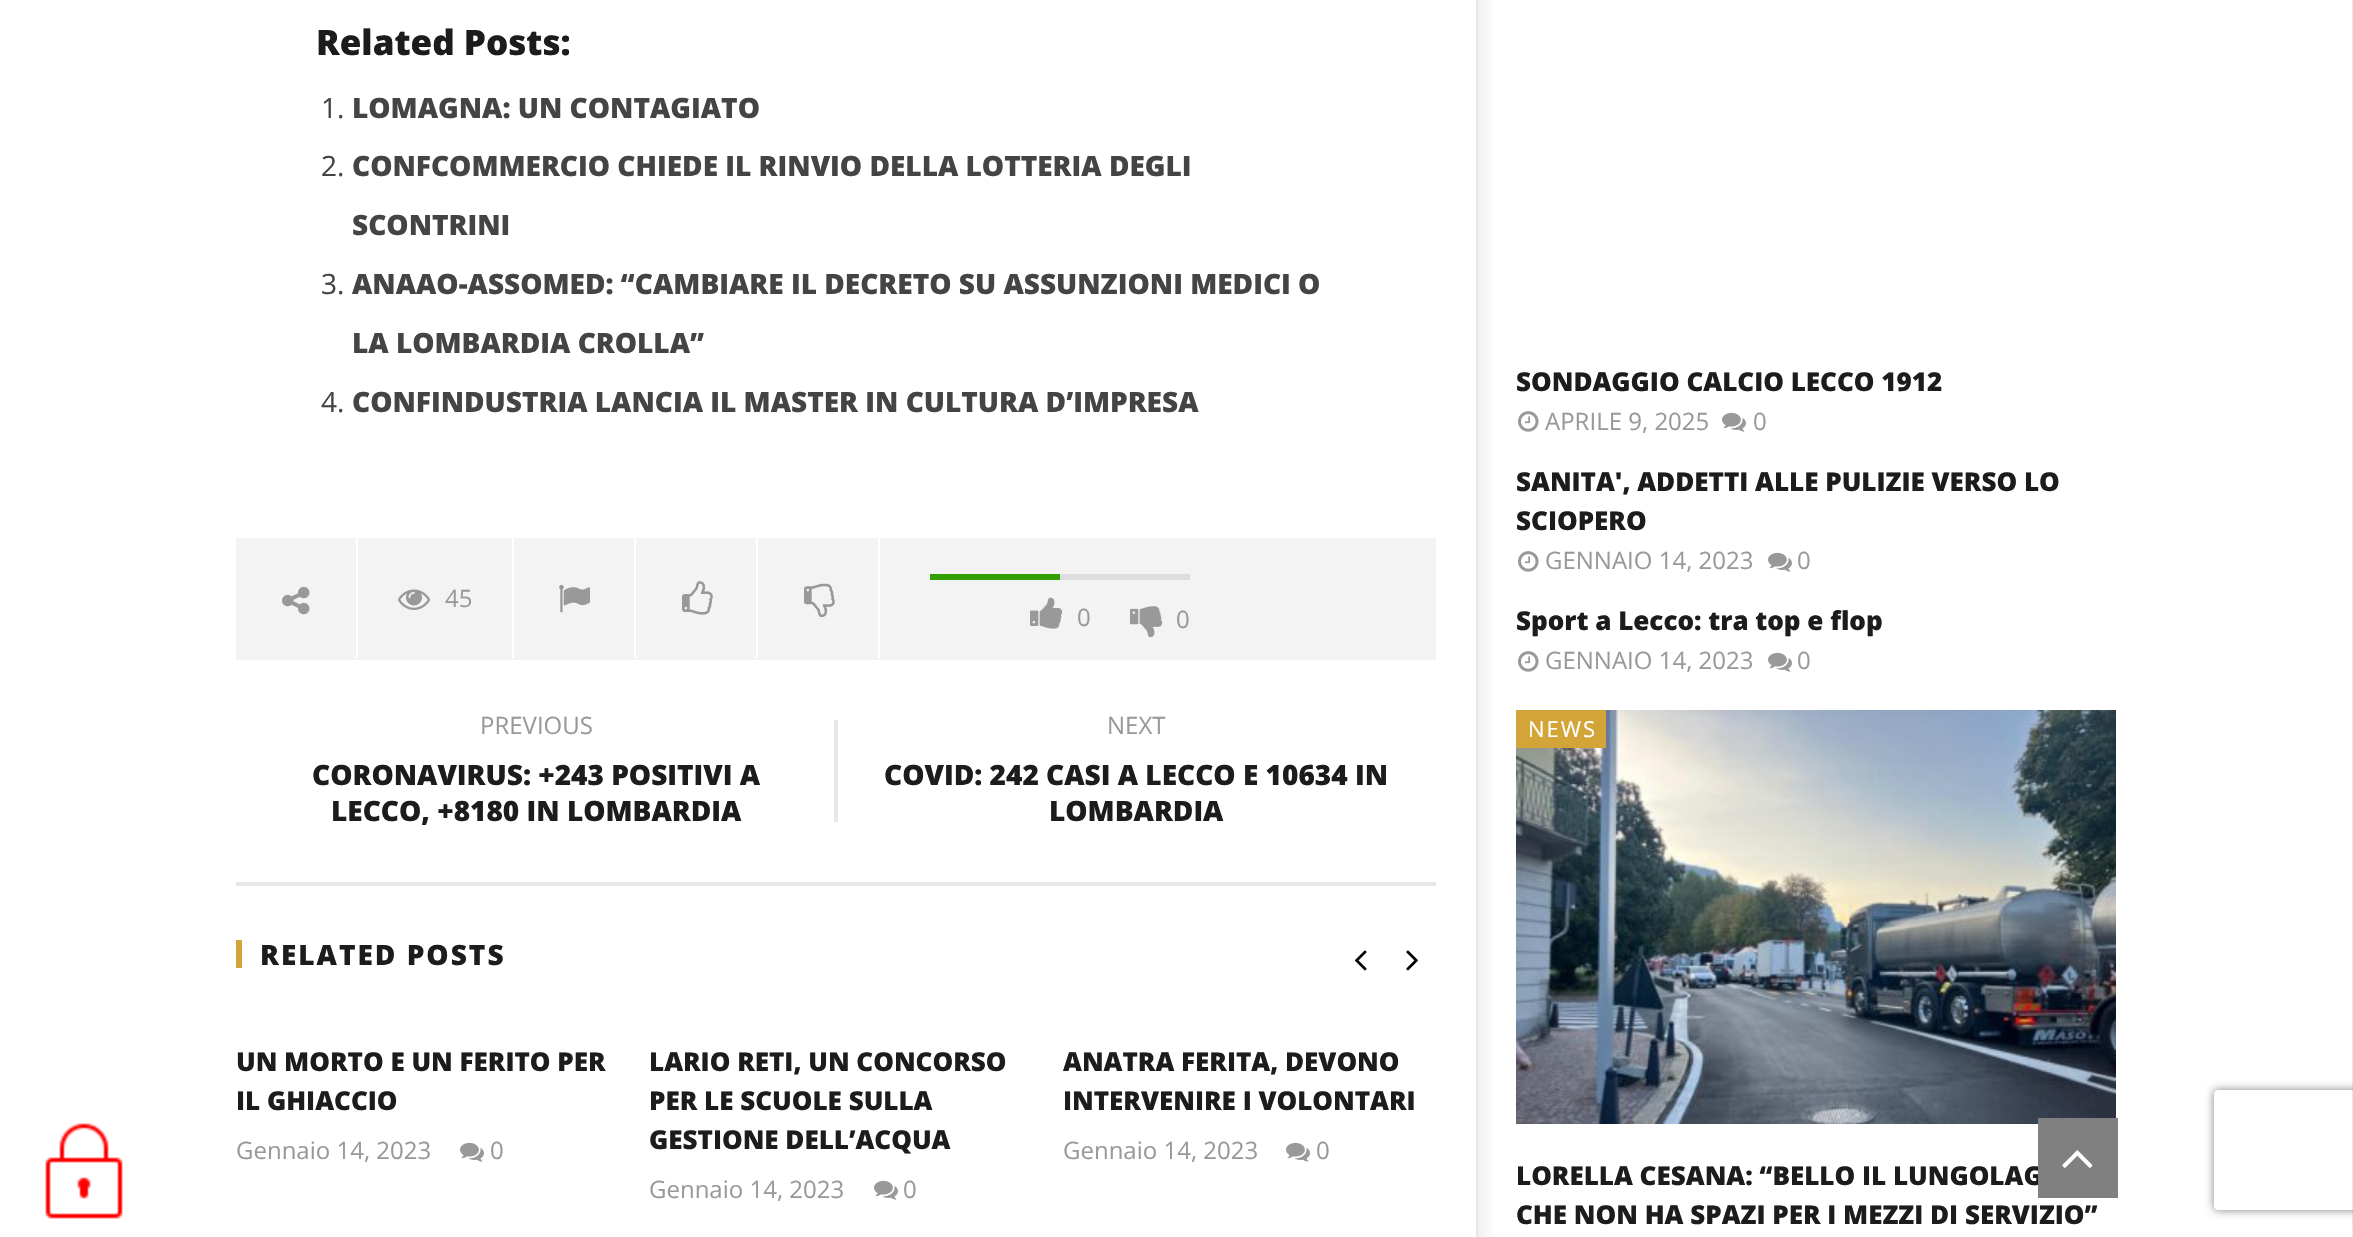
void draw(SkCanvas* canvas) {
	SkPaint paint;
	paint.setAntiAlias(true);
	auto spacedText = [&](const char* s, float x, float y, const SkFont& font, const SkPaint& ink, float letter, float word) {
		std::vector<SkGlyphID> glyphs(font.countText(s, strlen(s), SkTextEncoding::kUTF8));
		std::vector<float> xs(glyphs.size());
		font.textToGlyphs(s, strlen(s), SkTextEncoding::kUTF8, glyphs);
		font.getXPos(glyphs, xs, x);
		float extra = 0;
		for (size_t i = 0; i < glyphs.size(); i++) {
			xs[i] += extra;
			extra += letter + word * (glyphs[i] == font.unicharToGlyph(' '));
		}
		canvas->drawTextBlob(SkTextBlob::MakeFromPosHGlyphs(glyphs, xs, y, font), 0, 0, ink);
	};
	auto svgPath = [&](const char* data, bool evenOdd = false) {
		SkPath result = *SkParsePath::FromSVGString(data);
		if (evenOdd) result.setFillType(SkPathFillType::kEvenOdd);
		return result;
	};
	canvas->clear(0xffe7e7e7);
	paint.setColor(0xffffffff);
	canvas->drawRect(SkRect::MakeXYWH(0, 0, 2352, 1237), paint);
	canvas->drawImageRect(SkImages::DeferredFromEncodedData(SkData::MakeFromFileName("img1.png")), SkRect::MakeXYWH(45, 1123, 78, 96), SkSamplingOptions());
	SkFont f1(fontMgr->matchFamilyStyle("Open Sans", SkFontStyle(800, SkFontStyle::kNormal_Width, SkFontStyle::kUpright_Slant)), 35);
	f1.setSubpixel(true);
	paint.setColor(0xff1c1c1c);
	canvas->drawString("Related Posts:", 316, 55, f1, paint);
	SkFont f2(fontMgr->matchFamilyStyle("Open Sans", SkFontStyle::Normal()), 28);
	f2.setSubpixel(true);
	paint.setColor(0xff444444);
	canvas->drawString("1.", 321, 118, f2, paint);
	SkFont f3(fontMgr->matchFamilyStyle("Open Sans", SkFontStyle(800, SkFontStyle::kNormal_Width, SkFontStyle::kUpright_Slant)), 28);
	f3.setSubpixel(true);
	canvas->drawString("LOMAGNA: UN CONTAGIATO", 352, 118, f3, paint);
	canvas->drawString("2.", 321, 176, f2, paint);
	canvas->drawString("CONFCOMMERCIO CHIEDE IL RINVIO DELLA LOTTERIA DEGLI", 352, 176, f3, paint);
	canvas->drawString("SCONTRINI", 352, 235, f3, paint);
	canvas->drawString("3.", 321, 294, f2, paint);
	canvas->drawString("ANAAO-ASSOMED: “CAMBIARE IL DECRETO SU ASSUNZIONI MEDICI O", 352, 294, f3, paint);
	canvas->drawString("LA LOMBARDIA CROLLA”", 352, 353, f3, paint);
	canvas->drawString("4.", 321, 412, f2, paint);
	canvas->drawString("CONFINDUSTRIA LANCIA IL MASTER IN CULTURA D’IMPRESA", 352, 412, f3, paint);
	paint.setColor(0xfff3f3f3);
	canvas->drawRect(SkRect::MakeXYWH(236, 538, 1200, 122), paint);
	paint.setColor(0xffffffff);
	canvas->drawRect(SkRect::MakeXYWH(356, 538, 2, 120), paint);
	canvas->drawImageRect(SkImages::DeferredFromEncodedData(SkData::MakeFromFileName("img2.png")), SkRect::MakeXYWH(282, 586, 28, 29), SkSamplingOptions());
	canvas->drawRect(SkRect::MakeXYWH(512, 538, 2, 120), paint);
	canvas->drawImageRect(SkImages::DeferredFromEncodedData(SkData::MakeFromFileName("img3.png")), SkRect::MakeXYWH(398, 589, 32, 21), SkSamplingOptions());
	SkFont f4(fontMgr->matchFamilyStyle("Open Sans", SkFontStyle::Normal()), 24);
	f4.setSubpixel(true);
	paint.setColor(0xff999999);
	canvas->drawString("45", 445, 607, f4, paint);
	paint.setColor(0xffffffff);
	canvas->drawRect(SkRect::MakeXYWH(634, 538, 2, 120), paint);
	canvas->drawImageRect(SkImages::DeferredFromEncodedData(SkData::MakeFromFileName("img4.png")), SkRect::MakeXYWH(559, 584, 31, 29), SkSamplingOptions());
	canvas->drawRect(SkRect::MakeXYWH(756, 538, 2, 120), paint);
	canvas->drawImageRect(SkImages::DeferredFromEncodedData(SkData::MakeFromFileName("img5.png")), SkRect::MakeXYWH(682, 581, 31, 34), SkSamplingOptions());
	canvas->drawRect(SkRect::MakeXYWH(878, 538, 2, 120), paint);
	canvas->drawImageRect(SkImages::DeferredFromEncodedData(SkData::MakeFromFileName("img6.png")), SkRect::MakeXYWH(804, 583, 31, 35), SkSamplingOptions());
	paint.setColor(0xffdddddd);
	canvas->drawRect(SkRect::MakeXYWH(1060, 574, 130, 6), paint);
	paint.setColor(0xff329e00);
	canvas->drawRect(SkRect::MakeXYWH(930, 574, 130, 6), paint);
	canvas->drawImageRect(SkImages::DeferredFromEncodedData(SkData::MakeFromFileName("img7.png")), SkRect::MakeXYWH(1030, 597, 33, 32), SkSamplingOptions());
	paint.setColor(0xff999999);
	canvas->drawString("0", 1077, 626, f4, paint);
	canvas->drawImageRect(SkImages::DeferredFromEncodedData(SkData::MakeFromFileName("img8.png")), SkRect::MakeXYWH(1130, 606, 33, 32), SkSamplingOptions());
	canvas->drawString("0", 1176, 628, f4, paint);
	paint.setColor(0xffe7e7e7);
	canvas->drawRect(SkRect::MakeXYWH(236, 882, 1200, 4), paint);
	paint.setColor(0xff999999);
	canvas->drawString("PREVIOUS", 480, 734, f4, paint);
	paint.setColor(0xff1c1c1c);
	canvas->drawString("CORONAVIRUS: +243 POSITIVI A", 312, 785, f3, paint);
	canvas->drawString("LECCO, +8180 IN LOMBARDIA", 331, 821, f3, paint);
	paint.setColor(0xffe7e7e7);
	canvas->drawRect(SkRect::MakeXYWH(834, 720, 4, 102), paint);
	paint.setColor(0xff999999);
	canvas->drawString("NEXT", 1107, 734, f4, paint);
	paint.setColor(0xff1c1c1c);
	canvas->drawString("COVID: 242 CASI A LECCO E 10634 IN", 884, 785, f3, paint);
	canvas->drawString("LOMBARDIA", 1049, 821, f3, paint);
	paint.setColor(0xffd3a538);
	canvas->drawRect(SkRect::MakeXYWH(236, 940, 6, 28), paint);
	paint.setColor(0xff1c1c1c);
	spacedText("RELATED POSTS", 260, 965, f3, paint, 2, 0);
	canvas->drawImageRect(SkImages::DeferredFromEncodedData(SkData::MakeFromFileName("img9.png")), SkRect::MakeXYWH(1354, 950, 13, 21), SkSamplingOptions());
	canvas->drawImageRect(SkImages::DeferredFromEncodedData(SkData::MakeFromFileName("img10.png")), SkRect::MakeXYWH(1406, 950, 12, 21), SkSamplingOptions());
	SkFont f5(fontMgr->matchFamilyStyle("Open Sans", SkFontStyle(800, SkFontStyle::kNormal_Width, SkFontStyle::kUpright_Slant)), 26);
	f5.setSubpixel(true);
	canvas->drawString("UN MORTO E UN FERITO PER", 236, 1071, f5, paint);
	canvas->drawString("IL GHIACCIO", 236, 1110, f5, paint);
	paint.setColor(0xff999999);
	canvas->drawString("Gennaio 14, 2023", 236, 1159, f4, paint);
	canvas->drawImageRect(SkImages::DeferredFromEncodedData(SkData::MakeFromFileName("img11.png")), SkRect::MakeXYWH(460, 1142, 24, 20), SkSamplingOptions());
	canvas->drawString("0", 490, 1159, f4, paint);
	paint.setColor(0xff1c1c1c);
	canvas->drawString("LARIO RETI, UN CONCORSO", 649, 1071, f5, paint);
	canvas->drawString("PER LE SCUOLE SULLA", 649, 1110, f5, paint);
	canvas->drawString("GESTIONE DELL’ACQUA", 649, 1149, f5, paint);
	paint.setColor(0xff999999);
	canvas->drawString("Gennaio 14, 2023", 649, 1198, f4, paint);
	canvas->drawImageRect(SkImages::DeferredFromEncodedData(SkData::MakeFromFileName("img11.png")), SkRect::MakeXYWH(874, 1180, 24, 20), SkSamplingOptions());
	canvas->drawString("0", 903, 1198, f4, paint);
	paint.setColor(0xff1c1c1c);
	canvas->drawString("ANATRA FERITA, DEVONO", 1063, 1071, f5, paint);
	canvas->drawString("INTERVENIRE I VOLONTARI", 1063, 1110, f5, paint);
	paint.setColor(0xff999999);
	canvas->drawString("Gennaio 14, 2023", 1063, 1159, f4, paint);
	canvas->drawImageRect(SkImages::DeferredFromEncodedData(SkData::MakeFromFileName("img11.png")), SkRect::MakeXYWH(1286, 1142, 24, 20), SkSamplingOptions());
	canvas->drawString("0", 1316, 1159, f4, paint);
	{
		const SkColor colors[] = {0xfff0f0f0, 0xffffffff};
		const float stops[] = {0, 1};
		const SkPoint ends[] = {{1478, -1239}, {1496, -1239}};
		paint.setShader(SkGradientShader::MakeLinear(ends, colors, stops, 2, SkTileMode::kClamp));
		paint.setAlpha(255);
	}
	canvas->drawRect(SkRect::MakeXYWH(1478, 0, 15, 1237), paint);
	paint.setShader(nullptr);
	paint.setColor(0xffe7e7e7);
	canvas->drawRect(SkRect::MakeXYWH(1476, 0, 2, 1237), paint);
	paint.setColor(0xff1c1c1c);
	canvas->drawString("SONDAGGIO CALCIO LECCO 1912", 1516, 391, f5, paint);
	canvas->drawImageRect(SkImages::DeferredFromEncodedData(SkData::MakeFromFileName("img12.png")), SkRect::MakeXYWH(1518, 411, 21, 21), SkSamplingOptions());
	paint.setColor(0xff999999);
	canvas->drawString("APRILE 9, 2025", 1545, 430, f4, paint);
	canvas->drawImageRect(SkImages::DeferredFromEncodedData(SkData::MakeFromFileName("img11.png")), SkRect::MakeXYWH(1722, 412, 24, 20), SkSamplingOptions());
	canvas->drawString("0", 1753, 430, f4, paint);
	paint.setColor(0xff1c1c1c);
	canvas->drawString("SANITA', ADDETTI ALLE PULIZIE VERSO LO", 1516, 491, f5, paint);
	canvas->drawString("SCIOPERO", 1516, 530, f5, paint);
	canvas->drawImageRect(SkImages::DeferredFromEncodedData(SkData::MakeFromFileName("img12.png")), SkRect::MakeXYWH(1518, 551, 21, 21), SkSamplingOptions());
	paint.setColor(0xff999999);
	canvas->drawString("GENNAIO 14, 2023", 1545, 569, f4, paint);
	canvas->drawImageRect(SkImages::DeferredFromEncodedData(SkData::MakeFromFileName("img11.png")), SkRect::MakeXYWH(1768, 552, 24, 20), SkSamplingOptions());
	canvas->drawString("0", 1797, 569, f4, paint);
	paint.setColor(0xff1c1c1c);
	canvas->drawString("Sport a Lecco: tra top e flop", 1516, 630, f5, paint);
	canvas->drawImageRect(SkImages::DeferredFromEncodedData(SkData::MakeFromFileName("img12.png")), SkRect::MakeXYWH(1518, 651, 21, 21), SkSamplingOptions());
	paint.setColor(0xff999999);
	canvas->drawString("GENNAIO 14, 2023", 1545, 669, f4, paint);
	canvas->drawImageRect(SkImages::DeferredFromEncodedData(SkData::MakeFromFileName("img11.png")), SkRect::MakeXYWH(1768, 652, 24, 20), SkSamplingOptions());
	canvas->drawString("0", 1797, 669, f4, paint);
	canvas->drawImageRect(SkImages::DeferredFromEncodedData(SkData::MakeFromFileName("img13.png")), SkRect::MakeXYWH(1516, 710, 600, 414), SkSamplingOptions());
	paint.setColor(0xffd3a538);
	canvas->drawRect(SkRect::MakeXYWH(1516, 710, 90, 38), paint);
	SkFont f6(fontMgr->matchFamilyStyle("Open Sans", SkFontStyle::Normal()), 22);
	f6.setSubpixel(true);
	paint.setColor(0xffffffff);
	spacedText("NEWS", 1528, 737, f6, paint, 2, 0);
	paint.setColor(0xff1c1c1c);
	canvas->drawString("LORELLA CESANA: “BELLO IL LUNGOLAG", 1516, 1185, f5, paint);
	canvas->drawString("CHE NON HA SPAZI PER I MEZZI DI SERVIZIO”", 1516, 1224, f5, paint);
	paint.setColor(0xff808080);
	canvas->drawRect(SkRect::MakeXYWH(2038, 1118, 80, 80), paint);
	canvas->drawImageRect(SkImages::DeferredFromEncodedData(SkData::MakeFromFileName("img14.png")), SkRect::MakeXYWH(2062, 1150, 31, 18), SkSamplingOptions());
	canvas->save();
	canvas->clipPath(svgPath("M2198 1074H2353V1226H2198ZM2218 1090H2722C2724 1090 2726 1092 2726 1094V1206C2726 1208 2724 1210 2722 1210H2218C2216 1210 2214 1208 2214 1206V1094C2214 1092 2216 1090 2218 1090Z", true), true);
	paint.setMaskFilter(SkMaskFilter::MakeBlur(kNormal_SkBlurStyle, 5));
	canvas->drawRoundRect(SkRect::MakeXYWH(2214, 1090, 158, 120), 4, 4, paint);
	paint.setMaskFilter(nullptr);
	canvas->restore();
}
